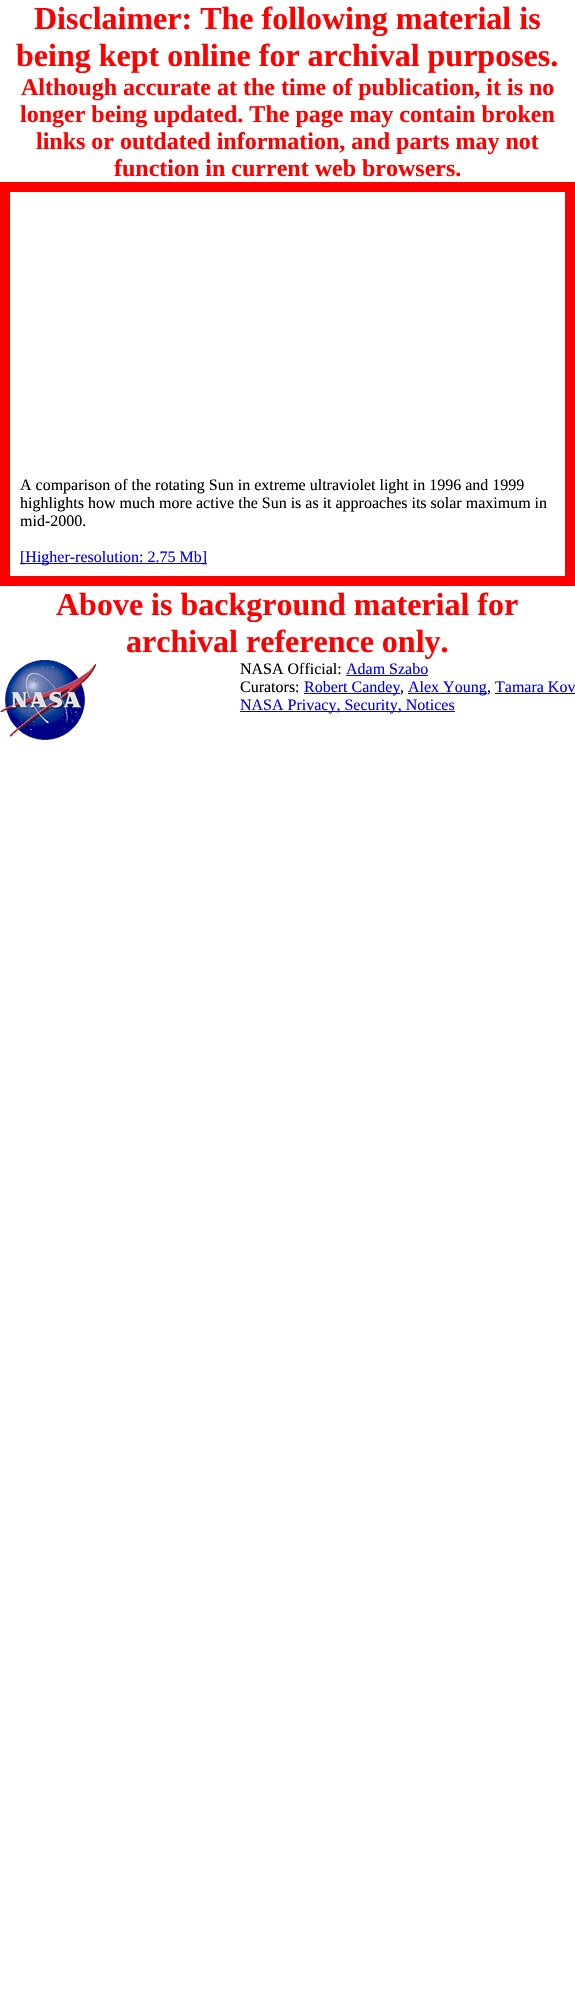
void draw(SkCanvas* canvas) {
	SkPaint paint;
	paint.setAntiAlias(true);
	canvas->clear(0xffffffff);
	SkFont f1(fontMgr->matchFamilyStyle("Liberation Serif", SkFontStyle::Bold()), 32);
	f1.setSubpixel(true);
	paint.setColor(0xffff0000);
	canvas->drawString("Disclaimer: The following material is", 34, 29, f1, paint);
	canvas->drawString("being kept online for archival purposes.", 16, 66, f1, paint);
	SkFont f2(fontMgr->matchFamilyStyle("Liberation Serif", SkFontStyle::Bold()), 24);
	f2.setSubpixel(true);
	canvas->drawString("Although accurate at the time of publication, it is no", 21, 95, f2, paint);
	canvas->drawString("longer being updated. The page may contain broken", 20, 122, f2, paint);
	canvas->drawString("links or outdated information, and parts may not", 36, 149, f2, paint);
	canvas->drawString("function in current web browsers.", 114, 176, f2, paint);
	paint.setStroke(true);
	paint.setStrokeWidth(10);
	canvas->drawRect(SkRect::MakeXYWH(5, 187, 565, 394), paint);
	SkFont f3(fontMgr->matchFamilyStyle("Liberation Serif", SkFontStyle::Normal()), 16);
	f3.setSubpixel(true);
	paint.setStroke(false);
	paint.setColor(0xff000000);
	canvas->drawString("A comparison of the rotating Sun in extreme ultraviolet light in 1996 and 1999", 20, 490, f3, paint);
	canvas->drawString("highlights how much more active the Sun is as it approaches its solar maximum in", 20, 508, f3, paint);
	canvas->drawString("mid-2000.", 20, 526, f3, paint);
	paint.setColor(0xff0000ee);
	canvas->drawRect(SkRect::MakeXYWH(20, 563, 187, 1), paint);
	canvas->drawString("[Higher-resolution: 2.75 Mb]", 20, 562, f3, paint);
	paint.setColor(0xffff0000);
	canvas->drawString("Above is background material for", 56, 615, f1, paint);
	canvas->drawString("archival reference only.", 126, 652, f1, paint);
	canvas->drawImageRect(SkImages::DeferredFromEncodedData(SkData::MakeFromFileName("img1.png")), SkRect::MakeXYWH(0, 660, 96, 80), SkSamplingOptions());
	paint.setColor(0xff000000);
	canvas->drawString("NASA Official:", 240, 674, f3, paint);
	paint.setColor(0xff0000ee);
	canvas->drawString("Adam Szabo", 346, 674, f3, paint);
	canvas->drawRect(SkRect::MakeXYWH(346, 675, 82, 1), paint);
	paint.setColor(0xff000000);
	canvas->drawString("Curators:", 240, 692, f3, paint);
	paint.setColor(0xff0000ee);
	canvas->drawRect(SkRect::MakeXYWH(304, 693, 96, 1), paint);
	canvas->drawString("Robert Candey", 304, 692, f3, paint);
	paint.setColor(0xff000000);
	canvas->drawString(",", 400, 692, f3, paint);
	paint.setColor(0xff0000ee);
	canvas->drawRect(SkRect::MakeXYWH(408, 693, 79, 1), paint);
	canvas->drawString("Alex Young", 408, 692, f3, paint);
	paint.setColor(0xff000000);
	canvas->drawString(",", 487, 692, f3, paint);
	paint.setColor(0xff0000ee);
	canvas->drawRect(SkRect::MakeXYWH(495, 693, 80, 1), paint);
	canvas->drawString("Tamara Kov", 495, 692, f3, paint);
	canvas->drawRect(SkRect::MakeXYWH(240, 711, 215, 1), paint);
	canvas->drawString("NASA Privacy, Security, Notices", 240, 710, f3, paint);
}
